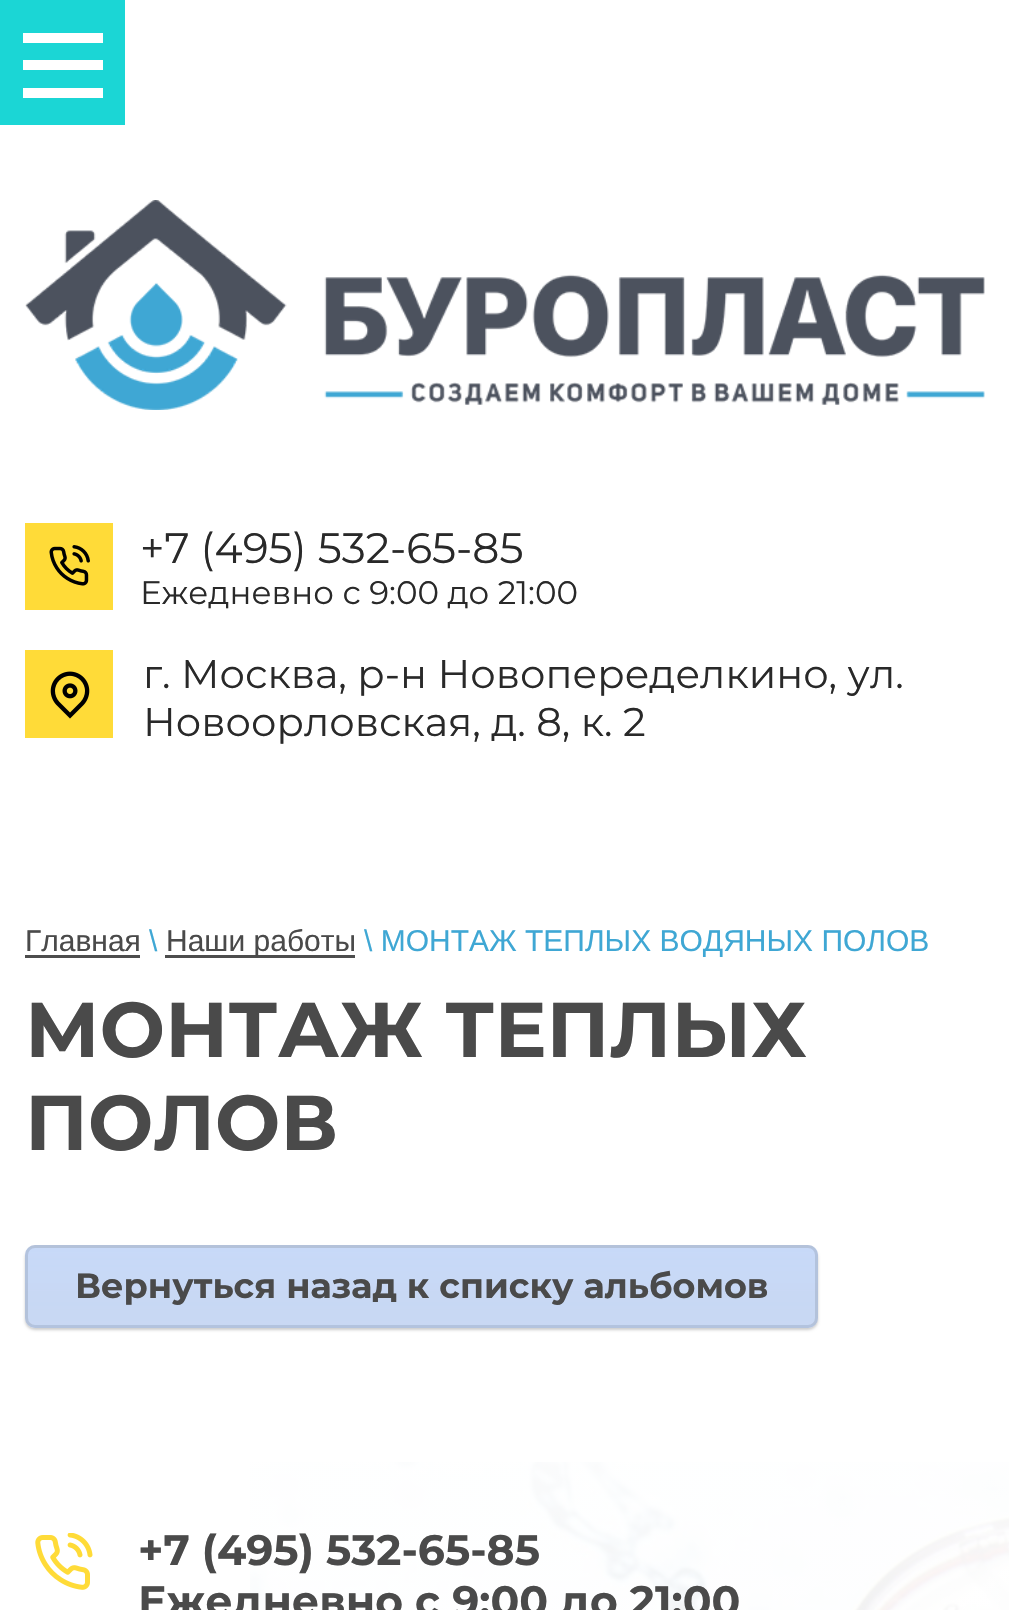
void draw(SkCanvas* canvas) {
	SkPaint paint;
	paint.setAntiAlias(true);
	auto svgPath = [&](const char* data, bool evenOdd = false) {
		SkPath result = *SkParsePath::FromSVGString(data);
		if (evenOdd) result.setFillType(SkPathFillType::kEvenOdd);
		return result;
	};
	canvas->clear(0xffffffff);
	paint.setColor(0xff1bd6d5);
	canvas->drawRect(SkRect::MakeXYWH(0, 0, 125, 125), paint);
	paint.setColor(0xffffffff);
	canvas->drawRect(SkRect::MakeXYWH(23, 33, 80, 10), paint);
	canvas->drawRect(SkRect::MakeXYWH(23, 60, 80, 10), paint);
	canvas->drawRect(SkRect::MakeXYWH(23, 88, 80, 10), paint);
	canvas->drawImageRect(SkImages::DeferredFromEncodedData(SkData::MakeFromFileName("img1.png")), SkRect::MakeXYWH(25, 200, 960, 210), SkSamplingOptions());
	paint.setColor(0xffffdb38);
	canvas->drawRect(SkRect::MakeXYWH(25, 523, 88, 87), paint);
	canvas->drawImageRect(SkImages::DeferredFromEncodedData(SkData::MakeFromFileName("img2.png")), SkRect::MakeXYWH(49, 545, 41, 41), SkSamplingOptions());
	SkFont f1(fontMgr->matchFamilyStyle("Montserrat", SkFontStyle::Normal()), 42.5);
	f1.setSubpixel(true);
	paint.setColor(0xff292929);
	canvas->drawString("+7 (495) 532-65-85", 140, 563, f1, paint);
	SkFont f2(fontMgr->matchFamilyStyle("Montserrat", SkFontStyle::Normal()), 32.5);
	f2.setSubpixel(true);
	canvas->drawString("Ежедневно с 9:00 до 21:00", 140, 604, f2, paint);
	paint.setColor(0xffffdb38);
	canvas->drawRect(SkRect::MakeXYWH(25, 650, 88, 88), paint);
	canvas->drawImageRect(SkImages::DeferredFromEncodedData(SkData::MakeFromFileName("img3.png")), SkRect::MakeXYWH(50, 671, 40, 48), SkSamplingOptions());
	SkFont f3(fontMgr->matchFamilyStyle("Montserrat", SkFontStyle::Normal()), 40);
	f3.setSubpixel(true);
	paint.setColor(0xff292929);
	canvas->drawString("г. Москва, р-н Новопеределкино, ул.", 143, 688, f3, paint);
	canvas->drawString("Новоорловская, д. 8, к. 2", 143, 736, f3, paint);
	SkFont f4(fontMgr->matchFamilyStyle("Liberation Sans", SkFontStyle::Normal()), 30);
	f4.setSubpixel(true);
	paint.setColor(0xff4a4a4a);
	canvas->drawString("Главная", 25, 951, f4, paint);
	paint.setColor(0xff4d4d4d);
	canvas->drawRect(SkRect::MakeXYWH(25, 955, 115, 3), paint);
	paint.setColor(0xff3fa7d4);
	canvas->drawString("\\", 149, 951, f4, paint);
	paint.setColor(0xff4d4d4d);
	canvas->drawRect(SkRect::MakeXYWH(165, 955, 190, 3), paint);
	paint.setColor(0xff4a4a4a);
	canvas->drawString("Наши работы", 166, 951, f4, paint);
	paint.setColor(0xff3fa7d4);
	canvas->drawString("\\ МОНТАЖ ТЕПЛЫХ ВОДЯНЫХ ПОЛОВ", 364, 951, f4, paint);
	SkFont f5(fontMgr->matchFamilyStyle("Montserrat", SkFontStyle::Bold()), 77.5);
	f5.setSubpixel(true);
	paint.setColor(0xff4a4a4a);
	canvas->drawString("МОНТАЖ ТЕПЛЫХ", 25, 1057, f5, paint);
	canvas->drawString("ПОЛОВ", 25, 1150, f5, paint);
	canvas->save();
	canvas->clipPath(svgPath("M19 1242H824V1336H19ZM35 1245H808C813.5 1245 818 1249.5 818 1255V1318C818 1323.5 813.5 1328 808 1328H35C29.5 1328 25 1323.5 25 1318V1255C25 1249.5 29.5 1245 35 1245Z", true), true);
	paint.setColor(0x33000000);
	paint.setMaskFilter(SkMaskFilter::MakeBlur(kNormal_SkBlurStyle, 1.5));
	canvas->drawRoundRect(SkRect::MakeXYWH(25, 1248, 793, 82), 10, 10, paint);
	paint.setMaskFilter(nullptr);
	canvas->restore();
	paint.setColor(0x1a1155cc);
	canvas->drawRoundRect(SkRect::MakeXYWH(25, 1245, 793, 83), 10, 10, paint);
	canvas->save();
	canvas->clipPath(svgPath("M35 1245H808C813.5 1245 818 1249.5 818 1255V1318C818 1323.5 813.5 1328 808 1328H35C29.5 1328 25 1323.5 25 1318V1255C25 1249.5 29.5 1245 35 1245Z"), true);
	{
		const SkColor colors[] = {0x2e3b7cef, 0x241155cc};
		const float stops[] = {0, 1};
		const SkPoint ends[] = {{421, 1170}, {421, 1248}};
		paint.setShader(SkGradientShader::MakeLinear(ends, colors, stops, 2, SkTileMode::kClamp));
		paint.setAlpha(255);
	}
	canvas->drawRect(SkRect::MakeXYWH(25, 1245, 793, 3), paint);
	{
		const SkColor colors[] = {0x2e3b7cef, 0x241155cc};
		const float stops[] = {0, 1};
		const SkPoint ends[] = {{421, 1248}, {421, 1325}};
		paint.setShader(SkGradientShader::MakeLinear(ends, colors, stops, 2, SkTileMode::kClamp));
		paint.setAlpha(255);
	}
	canvas->drawRect(SkRect::MakeXYWH(25, 1248, 793, 77), paint);
	{
		const SkColor colors[] = {0x2e3b7cef, 0x241155cc};
		const float stops[] = {0, 1};
		const SkPoint ends[] = {{421, 1325}, {421, 1403}};
		paint.setShader(SkGradientShader::MakeLinear(ends, colors, stops, 2, SkTileMode::kClamp));
		paint.setAlpha(255);
	}
	canvas->drawRect(SkRect::MakeXYWH(25, 1325, 793, 3), paint);
	canvas->restore();
	paint.setStroke(true);
	paint.setStrokeWidth(3);
	paint.setShader(nullptr);
	paint.setColor(0x1a000000);
	canvas->drawRoundRect(SkRect::MakeXYWH(26.5, 1246.5, 790, 80), 8.5, 8.5, paint);
	SkFont f6(fontMgr->matchFamilyStyle("Montserrat", SkFontStyle::Bold()), 35);
	f6.setSubpixel(true);
	paint.setStroke(false);
	paint.setColor(0xff4a4a4a);
	canvas->drawString("Вернуться назад к списку альбомов", 75, 1298, f6, paint);
	canvas->drawImageRect(SkImages::DeferredFromEncodedData(SkData::MakeFromFileName("img4.png")), SkRect::MakeXYWH(250, 1462, 759, 148), SkSamplingOptions());
	canvas->drawImageRect(SkImages::DeferredFromEncodedData(SkData::MakeFromFileName("img5.png")), SkRect::MakeXYWH(35, 1533, 58, 57), SkSamplingOptions());
	SkFont f7(fontMgr->matchFamilyStyle("Montserrat", SkFontStyle::Bold()), 42.5);
	f7.setSubpixel(true);
	canvas->drawString("+7 (495) 532-65-85", 138, 1565, f7, paint);
	canvas->drawString("Ежедневно с 9:00 до 21:00", 138, 1616, f7, paint);
}
